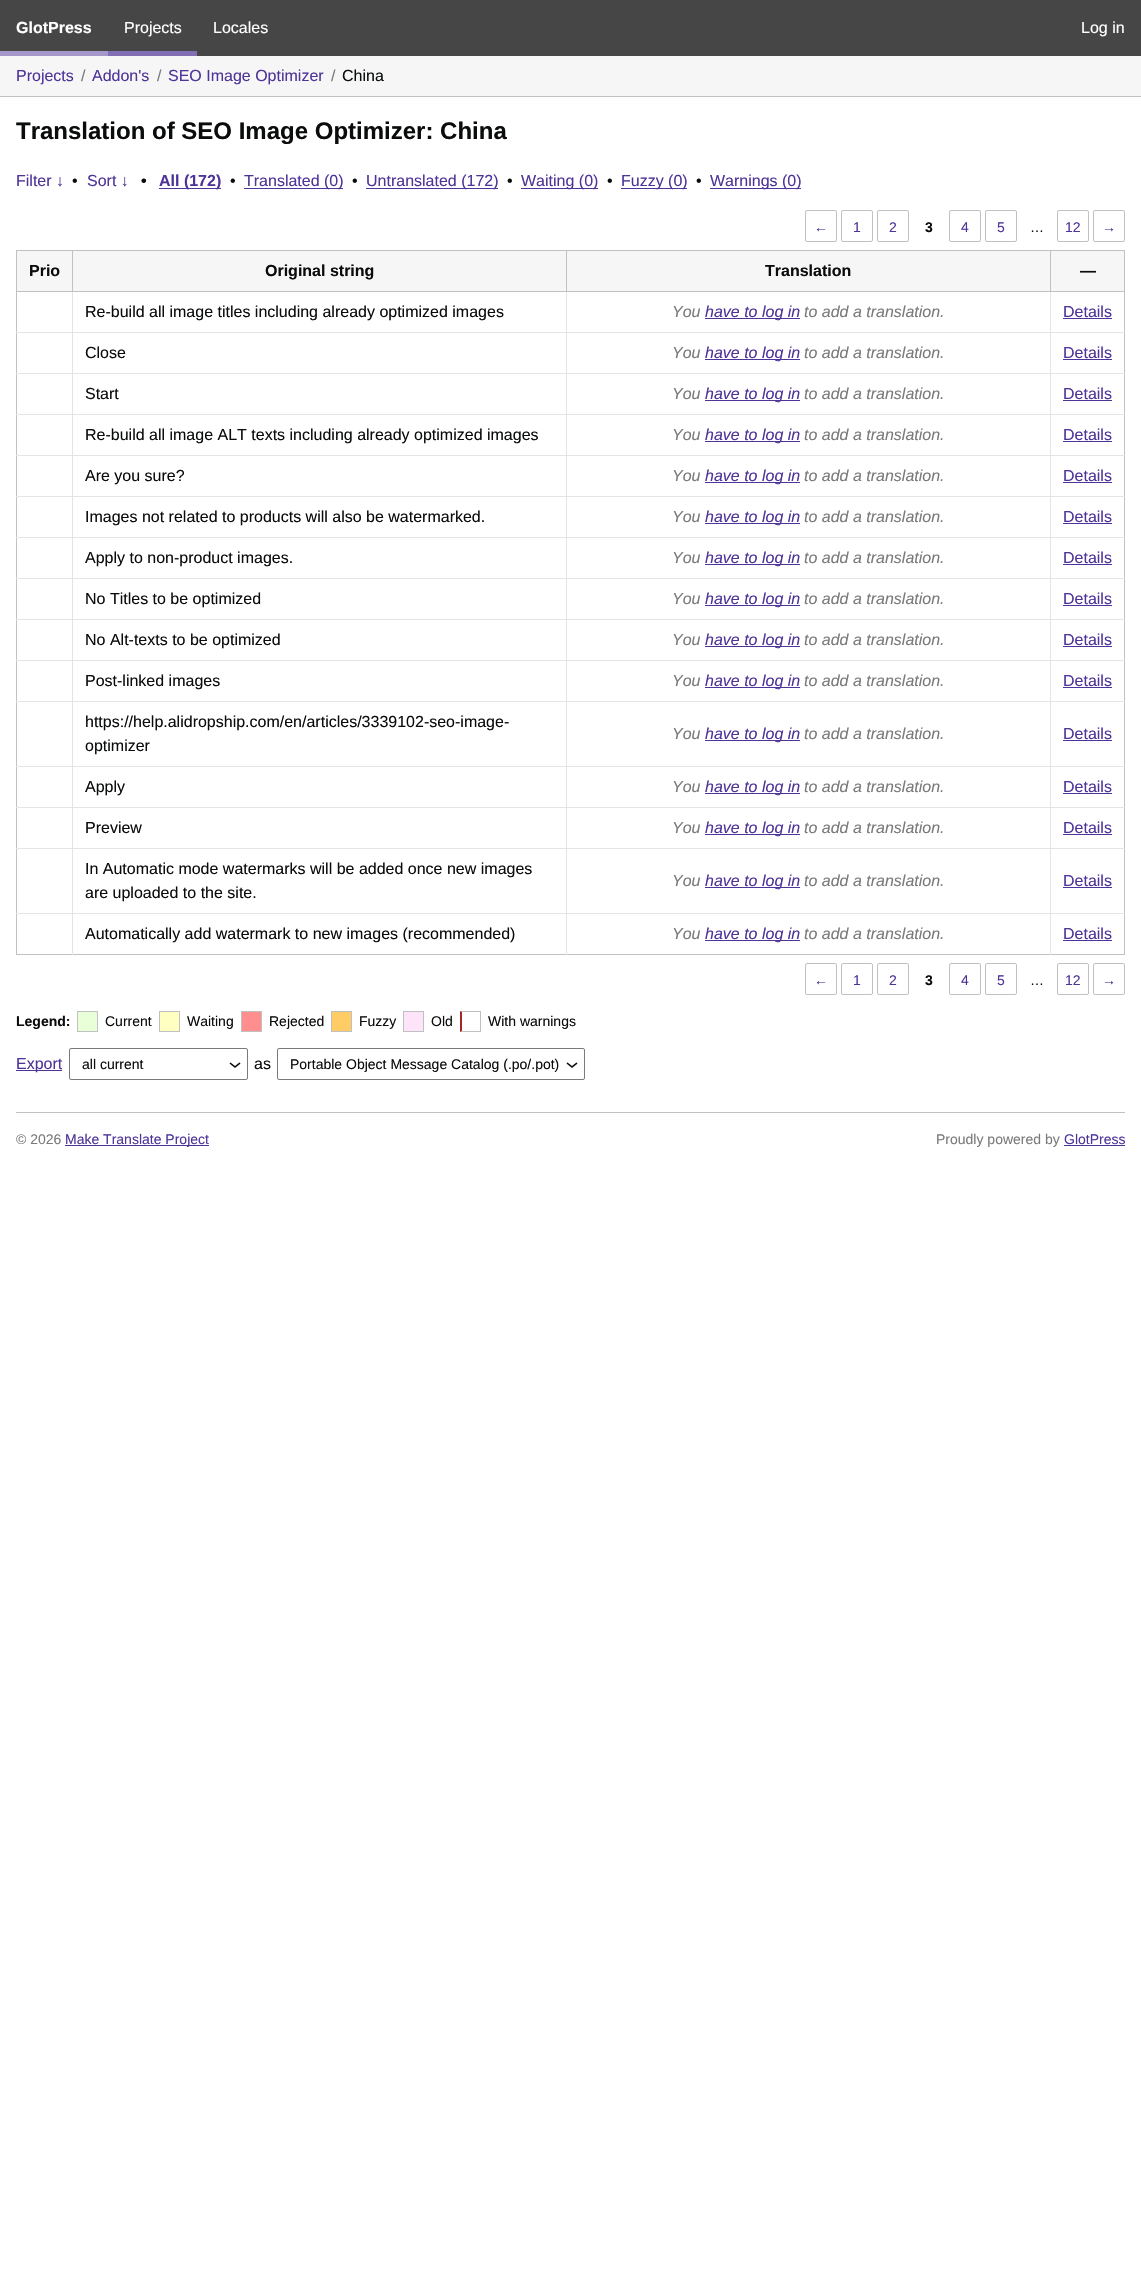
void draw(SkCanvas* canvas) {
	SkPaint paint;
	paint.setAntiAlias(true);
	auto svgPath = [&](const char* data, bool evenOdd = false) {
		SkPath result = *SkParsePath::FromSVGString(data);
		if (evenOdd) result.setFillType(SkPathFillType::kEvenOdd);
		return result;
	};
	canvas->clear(0xffffffff);
	paint.setColor(0xff464646);
	canvas->drawRect(SkRect::MakeXYWH(0, 0, 1141, 56), paint);
	paint.setColor(0xffa597c9);
	canvas->drawRect(SkRect::MakeXYWH(0, 51, 108, 5), paint);
	SkFont f1(fontMgr->matchFamilyStyle("Liberation Sans", SkFontStyle::Bold()), 16);
	f1.setSubpixel(true);
	paint.setColor(0xffffffff);
	canvas->drawString("GlotPress", 16, 33, f1, paint);
	paint.setColor(0xff826eb4);
	canvas->drawRect(SkRect::MakeXYWH(108, 51, 89, 5), paint);
	SkFont f2(fontMgr->matchFamilyStyle("Liberation Sans", SkFontStyle::Normal()), 16);
	f2.setSubpixel(true);
	paint.setColor(0xffffffff);
	canvas->drawString("Projects", 124, 33, f2, paint);
	canvas->drawString("Locales", 213, 33, f2, paint);
	canvas->drawString("Log in", 1081, 33, f2, paint);
	paint.setColor(0xfff6f6f6);
	canvas->drawRect(SkRect::MakeXYWH(0, 56, 1141, 40), paint);
	paint.setColor(0xffc1c1c1);
	canvas->drawRect(SkRect::MakeXYWH(0, 96, 1141, 1), paint);
	paint.setColor(0xff4e3499);
	canvas->drawString("Projects", 16, 81, f2, paint);
	paint.setColor(0xff7a7a7a);
	canvas->drawString("/", 81, 81, f2, paint);
	paint.setColor(0xff4e3499);
	canvas->drawString("Addon's", 92, 81, f2, paint);
	paint.setColor(0xff7a7a7a);
	canvas->drawString("/", 157, 81, f2, paint);
	paint.setColor(0xff4e3499);
	canvas->drawString("SEO Image Optimizer", 168, 81, f2, paint);
	paint.setColor(0xff7a7a7a);
	canvas->drawString("/", 331, 81, f2, paint);
	paint.setColor(0xff0b0c0c);
	canvas->drawString("China", 342, 81, f2, paint);
	SkFont f3(fontMgr->matchFamilyStyle("Liberation Sans", SkFontStyle::Bold()), 24);
	f3.setSubpixel(true);
	canvas->drawString("Translation of SEO Image Optimizer: China", 16, 139, f3, paint);
	paint.setColor(0xff4e3499);
	canvas->drawString("Filter ↓", 16, 186, f2, paint);
	paint.setColor(0xff0b0c0c);
	canvas->drawString("•", 72, 186, f2, paint);
	paint.setColor(0xff4e3499);
	canvas->drawString("Sort ↓", 87, 186, f2, paint);
	paint.setColor(0xff0b0c0c);
	canvas->drawString("•", 141, 186, f1, paint);
	paint.setColor(0xff4e3499);
	canvas->drawRect(SkRect::MakeXYWH(159, 188, 62, 1), paint);
	canvas->drawString("All (172)", 159, 186, f1, paint);
	paint.setColor(0xff0b0c0c);
	canvas->drawString("•", 230, 186, f2, paint);
	paint.setColor(0xff4e3499);
	canvas->drawRect(SkRect::MakeXYWH(244, 188, 99, 1), paint);
	canvas->drawString("Translated (0)", 244, 186, f2, paint);
	paint.setColor(0xff0b0c0c);
	canvas->drawString("•", 352, 186, f2, paint);
	paint.setColor(0xff4e3499);
	canvas->drawRect(SkRect::MakeXYWH(366, 188, 132, 1), paint);
	canvas->drawString("Untranslated (172)", 366, 186, f2, paint);
	paint.setColor(0xff0b0c0c);
	canvas->drawString("•", 507, 186, f2, paint);
	paint.setColor(0xff4e3499);
	canvas->drawRect(SkRect::MakeXYWH(521, 188, 77, 1), paint);
	canvas->drawString("Waiting (0)", 521, 186, f2, paint);
	paint.setColor(0xff0b0c0c);
	canvas->drawString("•", 607, 186, f2, paint);
	paint.setColor(0xff4e3499);
	canvas->drawRect(SkRect::MakeXYWH(621, 188, 66, 1), paint);
	canvas->drawString("Fuzzy (0)", 621, 186, f2, paint);
	paint.setColor(0xff0b0c0c);
	canvas->drawString("•", 696, 186, f2, paint);
	paint.setColor(0xff4e3499);
	canvas->drawRect(SkRect::MakeXYWH(710, 188, 91, 1), paint);
	canvas->drawString("Warnings (0)", 710, 186, f2, paint);
	paint.setStroke(true);
	paint.setStrokeWidth(1);
	paint.setColor(0xffc1c1c1);
	canvas->drawRoundRect(SkRect::MakeXYWH(805.5, 210.5, 31, 31), 1.5, 1.5, paint);
	SkFont f4(fontMgr->matchFamilyStyle("Liberation Sans", SkFontStyle::Normal()), 14);
	f4.setSubpixel(true);
	paint.setStroke(false);
	paint.setColor(0xff4e3499);
	canvas->drawString("←", 814, 232, f4, paint);
	paint.setStroke(true);
	paint.setColor(0xffc1c1c1);
	canvas->drawRoundRect(SkRect::MakeXYWH(841.5, 210.5, 31, 31), 1.5, 1.5, paint);
	paint.setStroke(false);
	paint.setColor(0xff4e3499);
	canvas->drawString("1", 853, 232, f4, paint);
	paint.setStroke(true);
	paint.setColor(0xffc1c1c1);
	canvas->drawRoundRect(SkRect::MakeXYWH(877.5, 210.5, 31, 31), 1.5, 1.5, paint);
	paint.setStroke(false);
	paint.setColor(0xff4e3499);
	canvas->drawString("2", 889, 232, f4, paint);
	SkFont f5(fontMgr->matchFamilyStyle("Liberation Sans", SkFontStyle::Bold()), 14);
	f5.setSubpixel(true);
	paint.setColor(0xff0b0c0c);
	canvas->drawString("3", 925, 232, f5, paint);
	paint.setStroke(true);
	paint.setColor(0xffc1c1c1);
	canvas->drawRoundRect(SkRect::MakeXYWH(949.5, 210.5, 31, 31), 1.5, 1.5, paint);
	paint.setStroke(false);
	paint.setColor(0xff4e3499);
	canvas->drawString("4", 961, 232, f4, paint);
	paint.setStroke(true);
	paint.setColor(0xffc1c1c1);
	canvas->drawRoundRect(SkRect::MakeXYWH(985.5, 210.5, 31, 31), 1.5, 1.5, paint);
	paint.setStroke(false);
	paint.setColor(0xff4e3499);
	canvas->drawString("5", 997, 232, f4, paint);
	paint.setColor(0xff0b0c0c);
	canvas->drawString("…", 1030, 232, f4, paint);
	paint.setStroke(true);
	paint.setColor(0xffc1c1c1);
	canvas->drawRoundRect(SkRect::MakeXYWH(1057.5, 210.5, 31, 31), 1.5, 1.5, paint);
	paint.setStroke(false);
	paint.setColor(0xff4e3499);
	canvas->drawString("12", 1065, 232, f4, paint);
	paint.setStroke(true);
	paint.setColor(0xffc1c1c1);
	canvas->drawRoundRect(SkRect::MakeXYWH(1093.5, 210.5, 31, 31), 1.5, 1.5, paint);
	paint.setStroke(false);
	paint.setColor(0xff4e3499);
	canvas->drawString("→", 1102, 232, f4, paint);
	paint.setColor(0xffc1c1c1);
	canvas->drawRect(SkRect::MakeXYWH(16, 250, 1109, 1), paint);
	canvas->drawRect(SkRect::MakeXYWH(1124, 250, 1, 705), paint);
	canvas->drawRect(SkRect::MakeXYWH(16, 954, 1109, 1), paint);
	canvas->drawRect(SkRect::MakeXYWH(16, 250, 1, 705), paint);
	paint.setColor(0xfff6f6f6);
	canvas->drawRect(SkRect::MakeXYWH(17, 251, 55, 40), paint);
	paint.setColor(0xffe4e4e4);
	canvas->drawRect(SkRect::MakeXYWH(1050, 332, 75, 1), paint);
	canvas->drawRect(SkRect::MakeXYWH(1050, 373, 75, 1), paint);
	canvas->drawRect(SkRect::MakeXYWH(1050, 414, 75, 1), paint);
	canvas->drawRect(SkRect::MakeXYWH(1050, 455, 75, 1), paint);
	canvas->drawRect(SkRect::MakeXYWH(1050, 496, 75, 1), paint);
	canvas->drawRect(SkRect::MakeXYWH(1050, 537, 75, 1), paint);
	canvas->drawRect(SkRect::MakeXYWH(1050, 578, 75, 1), paint);
	canvas->drawRect(SkRect::MakeXYWH(1050, 619, 75, 1), paint);
	canvas->drawRect(SkRect::MakeXYWH(1050, 660, 75, 1), paint);
	canvas->drawRect(SkRect::MakeXYWH(1050, 701, 75, 1), paint);
	canvas->drawRect(SkRect::MakeXYWH(1050, 766, 75, 1), paint);
	canvas->drawRect(SkRect::MakeXYWH(1050, 807, 75, 1), paint);
	canvas->drawRect(SkRect::MakeXYWH(1050, 848, 75, 1), paint);
	canvas->drawRect(SkRect::MakeXYWH(1050, 913, 75, 1), paint);
	canvas->drawRect(SkRect::MakeXYWH(1050, 913, 1, 42), paint);
	canvas->drawRect(SkRect::MakeXYWH(566, 913, 485, 1), paint);
	canvas->drawRect(SkRect::MakeXYWH(1050, 848, 1, 66), paint);
	canvas->drawRect(SkRect::MakeXYWH(566, 848, 485, 1), paint);
	canvas->drawRect(SkRect::MakeXYWH(1050, 807, 1, 42), paint);
	canvas->drawRect(SkRect::MakeXYWH(566, 807, 485, 1), paint);
	canvas->drawRect(SkRect::MakeXYWH(1050, 766, 1, 42), paint);
	canvas->drawRect(SkRect::MakeXYWH(566, 766, 485, 1), paint);
	canvas->drawRect(SkRect::MakeXYWH(1050, 701, 1, 66), paint);
	canvas->drawRect(SkRect::MakeXYWH(566, 701, 485, 1), paint);
	canvas->drawRect(SkRect::MakeXYWH(1050, 660, 1, 42), paint);
	canvas->drawRect(SkRect::MakeXYWH(566, 660, 485, 1), paint);
	canvas->drawRect(SkRect::MakeXYWH(1050, 619, 1, 42), paint);
	canvas->drawRect(SkRect::MakeXYWH(566, 619, 485, 1), paint);
	canvas->drawRect(SkRect::MakeXYWH(1050, 578, 1, 42), paint);
	canvas->drawRect(SkRect::MakeXYWH(566, 578, 485, 1), paint);
	canvas->drawRect(SkRect::MakeXYWH(1050, 537, 1, 42), paint);
	canvas->drawRect(SkRect::MakeXYWH(566, 537, 485, 1), paint);
	canvas->drawRect(SkRect::MakeXYWH(1050, 496, 1, 42), paint);
	canvas->drawRect(SkRect::MakeXYWH(566, 496, 485, 1), paint);
	canvas->drawRect(SkRect::MakeXYWH(1050, 455, 1, 42), paint);
	canvas->drawRect(SkRect::MakeXYWH(566, 455, 485, 1), paint);
	canvas->drawRect(SkRect::MakeXYWH(1050, 414, 1, 42), paint);
	canvas->drawRect(SkRect::MakeXYWH(566, 414, 485, 1), paint);
	canvas->drawRect(SkRect::MakeXYWH(1050, 373, 1, 42), paint);
	canvas->drawRect(SkRect::MakeXYWH(566, 373, 485, 1), paint);
	canvas->drawRect(SkRect::MakeXYWH(1050, 332, 1, 42), paint);
	canvas->drawRect(SkRect::MakeXYWH(566, 332, 485, 1), paint);
	canvas->drawRect(SkRect::MakeXYWH(1050, 291, 1, 42), paint);
	paint.setColor(0xffc1c1c1);
	canvas->drawRect(SkRect::MakeXYWH(1050, 291, 75, 1), paint);
	canvas->drawRect(SkRect::MakeXYWH(1050, 250, 1, 42), paint);
	paint.setColor(0xffe4e4e4);
	canvas->drawRect(SkRect::MakeXYWH(566, 913, 1, 42), paint);
	canvas->drawRect(SkRect::MakeXYWH(72, 913, 495, 1), paint);
	canvas->drawRect(SkRect::MakeXYWH(566, 848, 1, 66), paint);
	canvas->drawRect(SkRect::MakeXYWH(72, 848, 495, 1), paint);
	canvas->drawRect(SkRect::MakeXYWH(566, 807, 1, 42), paint);
	canvas->drawRect(SkRect::MakeXYWH(72, 807, 495, 1), paint);
	canvas->drawRect(SkRect::MakeXYWH(566, 766, 1, 42), paint);
	canvas->drawRect(SkRect::MakeXYWH(72, 766, 495, 1), paint);
	canvas->drawRect(SkRect::MakeXYWH(566, 701, 1, 66), paint);
	canvas->drawRect(SkRect::MakeXYWH(72, 701, 495, 1), paint);
	canvas->drawRect(SkRect::MakeXYWH(566, 660, 1, 42), paint);
	canvas->drawRect(SkRect::MakeXYWH(72, 660, 495, 1), paint);
	canvas->drawRect(SkRect::MakeXYWH(566, 619, 1, 42), paint);
	canvas->drawRect(SkRect::MakeXYWH(72, 619, 495, 1), paint);
	canvas->drawRect(SkRect::MakeXYWH(566, 578, 1, 42), paint);
	canvas->drawRect(SkRect::MakeXYWH(72, 578, 495, 1), paint);
	canvas->drawRect(SkRect::MakeXYWH(566, 537, 1, 42), paint);
	canvas->drawRect(SkRect::MakeXYWH(72, 537, 495, 1), paint);
	canvas->drawRect(SkRect::MakeXYWH(566, 496, 1, 42), paint);
	canvas->drawRect(SkRect::MakeXYWH(72, 496, 495, 1), paint);
	canvas->drawRect(SkRect::MakeXYWH(566, 455, 1, 42), paint);
	canvas->drawRect(SkRect::MakeXYWH(72, 455, 495, 1), paint);
	canvas->drawRect(SkRect::MakeXYWH(566, 414, 1, 42), paint);
	canvas->drawRect(SkRect::MakeXYWH(72, 414, 495, 1), paint);
	canvas->drawRect(SkRect::MakeXYWH(566, 373, 1, 42), paint);
	canvas->drawRect(SkRect::MakeXYWH(72, 373, 495, 1), paint);
	canvas->drawRect(SkRect::MakeXYWH(566, 332, 1, 42), paint);
	canvas->drawRect(SkRect::MakeXYWH(72, 332, 495, 1), paint);
	canvas->drawRect(SkRect::MakeXYWH(566, 291, 1, 42), paint);
	paint.setColor(0xffc1c1c1);
	canvas->drawRect(SkRect::MakeXYWH(566, 291, 485, 1), paint);
	canvas->drawRect(SkRect::MakeXYWH(566, 250, 1, 42), paint);
	paint.setColor(0xffe4e4e4);
	canvas->drawRect(SkRect::MakeXYWH(72, 913, 1, 42), paint);
	canvas->drawRect(SkRect::MakeXYWH(16, 913, 57, 1), paint);
	canvas->drawRect(SkRect::MakeXYWH(72, 848, 1, 66), paint);
	canvas->drawRect(SkRect::MakeXYWH(16, 848, 57, 1), paint);
	canvas->drawRect(SkRect::MakeXYWH(72, 807, 1, 42), paint);
	canvas->drawRect(SkRect::MakeXYWH(16, 807, 57, 1), paint);
	canvas->drawRect(SkRect::MakeXYWH(72, 766, 1, 42), paint);
	canvas->drawRect(SkRect::MakeXYWH(16, 766, 57, 1), paint);
	canvas->drawRect(SkRect::MakeXYWH(72, 701, 1, 66), paint);
	canvas->drawRect(SkRect::MakeXYWH(16, 701, 57, 1), paint);
	canvas->drawRect(SkRect::MakeXYWH(72, 660, 1, 42), paint);
	canvas->drawRect(SkRect::MakeXYWH(16, 660, 57, 1), paint);
	canvas->drawRect(SkRect::MakeXYWH(72, 619, 1, 42), paint);
	canvas->drawRect(SkRect::MakeXYWH(16, 619, 57, 1), paint);
	canvas->drawRect(SkRect::MakeXYWH(72, 578, 1, 42), paint);
	canvas->drawRect(SkRect::MakeXYWH(16, 578, 57, 1), paint);
	canvas->drawRect(SkRect::MakeXYWH(72, 537, 1, 42), paint);
	canvas->drawRect(SkRect::MakeXYWH(16, 537, 57, 1), paint);
	canvas->drawRect(SkRect::MakeXYWH(72, 496, 1, 42), paint);
	canvas->drawRect(SkRect::MakeXYWH(16, 496, 57, 1), paint);
	canvas->drawRect(SkRect::MakeXYWH(72, 455, 1, 42), paint);
	canvas->drawRect(SkRect::MakeXYWH(16, 455, 57, 1), paint);
	canvas->drawRect(SkRect::MakeXYWH(72, 414, 1, 42), paint);
	canvas->drawRect(SkRect::MakeXYWH(16, 414, 57, 1), paint);
	canvas->drawRect(SkRect::MakeXYWH(72, 373, 1, 42), paint);
	canvas->drawRect(SkRect::MakeXYWH(16, 373, 57, 1), paint);
	canvas->drawRect(SkRect::MakeXYWH(72, 332, 1, 42), paint);
	canvas->drawRect(SkRect::MakeXYWH(16, 332, 57, 1), paint);
	canvas->drawRect(SkRect::MakeXYWH(72, 291, 1, 42), paint);
	paint.setColor(0xffc1c1c1);
	canvas->drawRect(SkRect::MakeXYWH(72, 291, 495, 1), paint);
	canvas->drawRect(SkRect::MakeXYWH(72, 250, 1, 42), paint);
	canvas->drawRect(SkRect::MakeXYWH(16, 291, 57, 1), paint);
	paint.setColor(0xff0b0c0c);
	canvas->drawString("Prio", 29, 276, f1, paint);
	paint.setColor(0xfff6f6f6);
	canvas->drawRect(SkRect::MakeXYWH(73, 251, 493, 40), paint);
	paint.setColor(0xff0b0c0c);
	canvas->drawString("Original string", 265, 276, f1, paint);
	paint.setColor(0xfff6f6f6);
	canvas->drawRect(SkRect::MakeXYWH(567, 251, 483, 40), paint);
	paint.setColor(0xff0b0c0c);
	canvas->drawString("Translation", 765, 276, f1, paint);
	paint.setColor(0xfff6f6f6);
	canvas->drawRect(SkRect::MakeXYWH(1051, 251, 73, 40), paint);
	paint.setColor(0xff0b0c0c);
	canvas->drawString("—", 1080, 276, f1, paint);
	canvas->drawString("Re-build all image titles including already optimized images", 85, 317, f2, paint);
	SkFont f6(fontMgr->matchFamilyStyle("Liberation Sans", SkFontStyle::Italic()), 16);
	f6.setSubpixel(true);
	paint.setColor(0xff7a7a7a);
	canvas->drawString("You", 672, 317, f6, paint);
	paint.setColor(0xff4e3499);
	canvas->drawRect(SkRect::MakeXYWH(705, 318, 95, 1), paint);
	canvas->drawString("have to log in", 705, 317, f6, paint);
	paint.setColor(0xff7a7a7a);
	canvas->drawString("to add a translation.", 804, 317, f6, paint);
	paint.setColor(0xff4e3499);
	canvas->drawString("Details", 1063, 317, f2, paint);
	canvas->drawRect(SkRect::MakeXYWH(1063, 318, 49, 1), paint);
	paint.setColor(0xff0b0c0c);
	canvas->drawString("Close", 85, 358, f2, paint);
	paint.setColor(0xff7a7a7a);
	canvas->drawString("You", 672, 358, f6, paint);
	paint.setColor(0xff4e3499);
	canvas->drawRect(SkRect::MakeXYWH(705, 359, 95, 1), paint);
	canvas->drawString("have to log in", 705, 358, f6, paint);
	paint.setColor(0xff7a7a7a);
	canvas->drawString("to add a translation.", 804, 358, f6, paint);
	paint.setColor(0xff4e3499);
	canvas->drawString("Details", 1063, 358, f2, paint);
	canvas->drawRect(SkRect::MakeXYWH(1063, 359, 49, 1), paint);
	paint.setColor(0xff0b0c0c);
	canvas->drawString("Start", 85, 399, f2, paint);
	paint.setColor(0xff7a7a7a);
	canvas->drawString("You", 672, 399, f6, paint);
	paint.setColor(0xff4e3499);
	canvas->drawRect(SkRect::MakeXYWH(705, 400, 95, 1), paint);
	canvas->drawString("have to log in", 705, 399, f6, paint);
	paint.setColor(0xff7a7a7a);
	canvas->drawString("to add a translation.", 804, 399, f6, paint);
	paint.setColor(0xff4e3499);
	canvas->drawString("Details", 1063, 399, f2, paint);
	canvas->drawRect(SkRect::MakeXYWH(1063, 400, 49, 1), paint);
	paint.setColor(0xff0b0c0c);
	canvas->drawString("Re-build all image ALT texts including already optimized images", 85, 440, f2, paint);
	paint.setColor(0xff7a7a7a);
	canvas->drawString("You", 672, 440, f6, paint);
	paint.setColor(0xff4e3499);
	canvas->drawRect(SkRect::MakeXYWH(705, 441, 95, 1), paint);
	canvas->drawString("have to log in", 705, 440, f6, paint);
	paint.setColor(0xff7a7a7a);
	canvas->drawString("to add a translation.", 804, 440, f6, paint);
	paint.setColor(0xff4e3499);
	canvas->drawString("Details", 1063, 440, f2, paint);
	canvas->drawRect(SkRect::MakeXYWH(1063, 441, 49, 1), paint);
	paint.setColor(0xff0b0c0c);
	canvas->drawString("Are you sure?", 85, 481, f2, paint);
	paint.setColor(0xff7a7a7a);
	canvas->drawString("You", 672, 481, f6, paint);
	paint.setColor(0xff4e3499);
	canvas->drawRect(SkRect::MakeXYWH(705, 482, 95, 1), paint);
	canvas->drawString("have to log in", 705, 481, f6, paint);
	paint.setColor(0xff7a7a7a);
	canvas->drawString("to add a translation.", 804, 481, f6, paint);
	paint.setColor(0xff4e3499);
	canvas->drawString("Details", 1063, 481, f2, paint);
	canvas->drawRect(SkRect::MakeXYWH(1063, 482, 49, 1), paint);
	paint.setColor(0xff0b0c0c);
	canvas->drawString("Images not related to products will also be watermarked.", 85, 522, f2, paint);
	paint.setColor(0xff7a7a7a);
	canvas->drawString("You", 672, 522, f6, paint);
	paint.setColor(0xff4e3499);
	canvas->drawRect(SkRect::MakeXYWH(705, 523, 95, 1), paint);
	canvas->drawString("have to log in", 705, 522, f6, paint);
	paint.setColor(0xff7a7a7a);
	canvas->drawString("to add a translation.", 804, 522, f6, paint);
	paint.setColor(0xff4e3499);
	canvas->drawString("Details", 1063, 522, f2, paint);
	canvas->drawRect(SkRect::MakeXYWH(1063, 523, 49, 1), paint);
	paint.setColor(0xff0b0c0c);
	canvas->drawString("Apply to non-product images.", 85, 563, f2, paint);
	paint.setColor(0xff7a7a7a);
	canvas->drawString("You", 672, 563, f6, paint);
	paint.setColor(0xff4e3499);
	canvas->drawRect(SkRect::MakeXYWH(705, 564, 95, 1), paint);
	canvas->drawString("have to log in", 705, 563, f6, paint);
	paint.setColor(0xff7a7a7a);
	canvas->drawString("to add a translation.", 804, 563, f6, paint);
	paint.setColor(0xff4e3499);
	canvas->drawString("Details", 1063, 563, f2, paint);
	canvas->drawRect(SkRect::MakeXYWH(1063, 564, 49, 1), paint);
	paint.setColor(0xff0b0c0c);
	canvas->drawString("No Titles to be optimized", 85, 604, f2, paint);
	paint.setColor(0xff7a7a7a);
	canvas->drawString("You", 672, 604, f6, paint);
	paint.setColor(0xff4e3499);
	canvas->drawRect(SkRect::MakeXYWH(705, 605, 95, 1), paint);
	canvas->drawString("have to log in", 705, 604, f6, paint);
	paint.setColor(0xff7a7a7a);
	canvas->drawString("to add a translation.", 804, 604, f6, paint);
	paint.setColor(0xff4e3499);
	canvas->drawString("Details", 1063, 604, f2, paint);
	canvas->drawRect(SkRect::MakeXYWH(1063, 605, 49, 1), paint);
	paint.setColor(0xff0b0c0c);
	canvas->drawString("No Alt-texts to be optimized", 85, 645, f2, paint);
	paint.setColor(0xff7a7a7a);
	canvas->drawString("You", 672, 645, f6, paint);
	paint.setColor(0xff4e3499);
	canvas->drawRect(SkRect::MakeXYWH(705, 646, 95, 1), paint);
	canvas->drawString("have to log in", 705, 645, f6, paint);
	paint.setColor(0xff7a7a7a);
	canvas->drawString("to add a translation.", 804, 645, f6, paint);
	paint.setColor(0xff4e3499);
	canvas->drawString("Details", 1063, 645, f2, paint);
	canvas->drawRect(SkRect::MakeXYWH(1063, 646, 49, 1), paint);
	paint.setColor(0xff0b0c0c);
	canvas->drawString("Post-linked images", 85, 686, f2, paint);
	paint.setColor(0xff7a7a7a);
	canvas->drawString("You", 672, 686, f6, paint);
	paint.setColor(0xff4e3499);
	canvas->drawRect(SkRect::MakeXYWH(705, 687, 95, 1), paint);
	canvas->drawString("have to log in", 705, 686, f6, paint);
	paint.setColor(0xff7a7a7a);
	canvas->drawString("to add a translation.", 804, 686, f6, paint);
	paint.setColor(0xff4e3499);
	canvas->drawString("Details", 1063, 686, f2, paint);
	canvas->drawRect(SkRect::MakeXYWH(1063, 687, 49, 1), paint);
	paint.setColor(0xff0b0c0c);
	canvas->drawString("https://help.alidropship.com/en/articles/3339102-seo-image-", 85, 727, f2, paint);
	canvas->drawString("optimizer", 85, 751, f2, paint);
	paint.setColor(0xff7a7a7a);
	canvas->drawString("You", 672, 739, f6, paint);
	paint.setColor(0xff4e3499);
	canvas->drawRect(SkRect::MakeXYWH(705, 740, 95, 1), paint);
	canvas->drawString("have to log in", 705, 739, f6, paint);
	paint.setColor(0xff7a7a7a);
	canvas->drawString("to add a translation.", 804, 739, f6, paint);
	paint.setColor(0xff4e3499);
	canvas->drawString("Details", 1063, 739, f2, paint);
	canvas->drawRect(SkRect::MakeXYWH(1063, 740, 49, 1), paint);
	paint.setColor(0xff0b0c0c);
	canvas->drawString("Apply", 85, 792, f2, paint);
	paint.setColor(0xff7a7a7a);
	canvas->drawString("You", 672, 792, f6, paint);
	paint.setColor(0xff4e3499);
	canvas->drawRect(SkRect::MakeXYWH(705, 793, 95, 1), paint);
	canvas->drawString("have to log in", 705, 792, f6, paint);
	paint.setColor(0xff7a7a7a);
	canvas->drawString("to add a translation.", 804, 792, f6, paint);
	paint.setColor(0xff4e3499);
	canvas->drawString("Details", 1063, 792, f2, paint);
	canvas->drawRect(SkRect::MakeXYWH(1063, 793, 49, 1), paint);
	paint.setColor(0xff0b0c0c);
	canvas->drawString("Preview", 85, 833, f2, paint);
	paint.setColor(0xff7a7a7a);
	canvas->drawString("You", 672, 833, f6, paint);
	paint.setColor(0xff4e3499);
	canvas->drawRect(SkRect::MakeXYWH(705, 834, 95, 1), paint);
	canvas->drawString("have to log in", 705, 833, f6, paint);
	paint.setColor(0xff7a7a7a);
	canvas->drawString("to add a translation.", 804, 833, f6, paint);
	paint.setColor(0xff4e3499);
	canvas->drawString("Details", 1063, 833, f2, paint);
	canvas->drawRect(SkRect::MakeXYWH(1063, 834, 49, 1), paint);
	paint.setColor(0xff0b0c0c);
	canvas->drawString("In Automatic mode watermarks will be added once new images", 85, 874, f2, paint);
	canvas->drawString("are uploaded to the site.", 85, 898, f2, paint);
	paint.setColor(0xff7a7a7a);
	canvas->drawString("You", 672, 886, f6, paint);
	paint.setColor(0xff4e3499);
	canvas->drawRect(SkRect::MakeXYWH(705, 887, 95, 1), paint);
	canvas->drawString("have to log in", 705, 886, f6, paint);
	paint.setColor(0xff7a7a7a);
	canvas->drawString("to add a translation.", 804, 886, f6, paint);
	paint.setColor(0xff4e3499);
	canvas->drawString("Details", 1063, 886, f2, paint);
	canvas->drawRect(SkRect::MakeXYWH(1063, 887, 49, 1), paint);
	paint.setColor(0xff0b0c0c);
	canvas->drawString("Automatically add watermark to new images (recommended)", 85, 939, f2, paint);
	paint.setColor(0xff7a7a7a);
	canvas->drawString("You", 672, 939, f6, paint);
	paint.setColor(0xff4e3499);
	canvas->drawRect(SkRect::MakeXYWH(705, 940, 95, 1), paint);
	canvas->drawString("have to log in", 705, 939, f6, paint);
	paint.setColor(0xff7a7a7a);
	canvas->drawString("to add a translation.", 804, 939, f6, paint);
	paint.setColor(0xff4e3499);
	canvas->drawString("Details", 1063, 939, f2, paint);
	canvas->drawRect(SkRect::MakeXYWH(1063, 940, 49, 1), paint);
	paint.setStroke(true);
	paint.setColor(0xffc1c1c1);
	canvas->drawRoundRect(SkRect::MakeXYWH(805.5, 963.5, 31, 31), 1.5, 1.5, paint);
	paint.setStroke(false);
	paint.setColor(0xff4e3499);
	canvas->drawString("←", 814, 985, f4, paint);
	paint.setStroke(true);
	paint.setColor(0xffc1c1c1);
	canvas->drawRoundRect(SkRect::MakeXYWH(841.5, 963.5, 31, 31), 1.5, 1.5, paint);
	paint.setStroke(false);
	paint.setColor(0xff4e3499);
	canvas->drawString("1", 853, 985, f4, paint);
	paint.setStroke(true);
	paint.setColor(0xffc1c1c1);
	canvas->drawRoundRect(SkRect::MakeXYWH(877.5, 963.5, 31, 31), 1.5, 1.5, paint);
	paint.setStroke(false);
	paint.setColor(0xff4e3499);
	canvas->drawString("2", 889, 985, f4, paint);
	paint.setColor(0xff0b0c0c);
	canvas->drawString("3", 925, 985, f5, paint);
	paint.setStroke(true);
	paint.setColor(0xffc1c1c1);
	canvas->drawRoundRect(SkRect::MakeXYWH(949.5, 963.5, 31, 31), 1.5, 1.5, paint);
	paint.setStroke(false);
	paint.setColor(0xff4e3499);
	canvas->drawString("4", 961, 985, f4, paint);
	paint.setStroke(true);
	paint.setColor(0xffc1c1c1);
	canvas->drawRoundRect(SkRect::MakeXYWH(985.5, 963.5, 31, 31), 1.5, 1.5, paint);
	paint.setStroke(false);
	paint.setColor(0xff4e3499);
	canvas->drawString("5", 997, 985, f4, paint);
	paint.setColor(0xff0b0c0c);
	canvas->drawString("…", 1030, 985, f4, paint);
	paint.setStroke(true);
	paint.setColor(0xffc1c1c1);
	canvas->drawRoundRect(SkRect::MakeXYWH(1057.5, 963.5, 31, 31), 1.5, 1.5, paint);
	paint.setStroke(false);
	paint.setColor(0xff4e3499);
	canvas->drawString("12", 1065, 985, f4, paint);
	paint.setStroke(true);
	paint.setColor(0xffc1c1c1);
	canvas->drawRoundRect(SkRect::MakeXYWH(1093.5, 963.5, 31, 31), 1.5, 1.5, paint);
	paint.setStroke(false);
	paint.setColor(0xff4e3499);
	canvas->drawString("→", 1102, 985, f4, paint);
	paint.setColor(0xff0b0c0c);
	canvas->drawString("Legend:", 16, 1026, f5, paint);
	paint.setColor(0xffe9ffd8);
	canvas->drawRect(SkRect::MakeXYWH(77.5, 1011.5, 20, 20), paint);
	paint.setStroke(true);
	paint.setColor(0xffc1c1c1);
	canvas->drawRect(SkRect::MakeXYWH(77.5, 1011.5, 20, 20), paint);
	paint.setStroke(false);
	paint.setColor(0xff0b0c0c);
	canvas->drawString("Current", 105, 1026, f4, paint);
	paint.setColor(0xffffffc2);
	canvas->drawRect(SkRect::MakeXYWH(159.5, 1011.5, 20, 20), paint);
	paint.setStroke(true);
	paint.setColor(0xffc1c1c1);
	canvas->drawRect(SkRect::MakeXYWH(159.5, 1011.5, 20, 20), paint);
	paint.setStroke(false);
	paint.setColor(0xff0b0c0c);
	canvas->drawString("Waiting", 187, 1026, f4, paint);
	paint.setColor(0xffff8e8e);
	canvas->drawRect(SkRect::MakeXYWH(241.5, 1011.5, 20, 20), paint);
	paint.setStroke(true);
	paint.setColor(0xffc1c1c1);
	canvas->drawRect(SkRect::MakeXYWH(241.5, 1011.5, 20, 20), paint);
	paint.setStroke(false);
	paint.setColor(0xff0b0c0c);
	canvas->drawString("Rejected", 269, 1026, f4, paint);
	paint.setColor(0xffffcc66);
	canvas->drawRect(SkRect::MakeXYWH(331.5, 1011.5, 20, 20), paint);
	paint.setStroke(true);
	paint.setColor(0xffc1c1c1);
	canvas->drawRect(SkRect::MakeXYWH(331.5, 1011.5, 20, 20), paint);
	paint.setStroke(false);
	paint.setColor(0xff0b0c0c);
	canvas->drawString("Fuzzy", 359, 1026, f4, paint);
	paint.setColor(0xfffee4f8);
	canvas->drawRect(SkRect::MakeXYWH(403.5, 1011.5, 20, 20), paint);
	paint.setStroke(true);
	paint.setColor(0xffc1c1c1);
	canvas->drawRect(SkRect::MakeXYWH(403.5, 1011.5, 20, 20), paint);
	paint.setStroke(false);
	paint.setColor(0xff0b0c0c);
	canvas->drawString("Old", 431, 1026, f4, paint);
	paint.setColor(0xffc1c1c1);
	canvas->drawPath(svgPath("M460 1011H481L480 1012H462Z"), paint);
	canvas->drawRect(SkRect::MakeXYWH(480, 1011, 1, 21), paint);
	canvas->drawPath(svgPath("M481 1032H460L462 1031H480Z"), paint);
	paint.setColor(0xffa62626);
	canvas->drawPath(svgPath("M460 1032V1011L462 1012V1031Z"), paint);
	paint.setColor(0xff0b0c0c);
	canvas->drawString("With warnings", 488, 1026, f4, paint);
	paint.setColor(0xff4e3499);
	canvas->drawRect(SkRect::MakeXYWH(16, 1070, 46, 1), paint);
	canvas->drawString("Export", 16, 1069, f2, paint);
	canvas->drawImageRect(SkImages::DeferredFromEncodedData(SkData::MakeFromFileName("img1.png")), SkRect::MakeXYWH(229, 1062, 12, 6), SkSamplingOptions());
	paint.setStroke(true);
	paint.setColor(0xff7a7a7a);
	canvas->drawRoundRect(SkRect::MakeXYWH(69.5, 1048.5, 178, 31), 1.5, 1.5, paint);
	paint.setStroke(false);
	paint.setColor(0xff0b0c0c);
	canvas->drawString("all current", 82, 1069, f4, paint);
	canvas->drawString("as", 254, 1069, f2, paint);
	canvas->drawImageRect(SkImages::DeferredFromEncodedData(SkData::MakeFromFileName("img1.png")), SkRect::MakeXYWH(566, 1062, 12, 6), SkSamplingOptions());
	paint.setStroke(true);
	paint.setColor(0xff7a7a7a);
	canvas->drawRoundRect(SkRect::MakeXYWH(277.5, 1048.5, 307, 31), 1.5, 1.5, paint);
	paint.setStroke(false);
	paint.setColor(0xff0b0c0c);
	canvas->drawString("Portable Object Message Catalog (.po/.pot)", 290, 1069, f4, paint);
	paint.setColor(0xffc1c1c1);
	canvas->drawRect(SkRect::MakeXYWH(16, 1112, 1109, 1), paint);
	paint.setColor(0xff7a7a7a);
	canvas->drawString("© 2026", 16, 1144, f4, paint);
	paint.setColor(0xff4e3499);
	canvas->drawRect(SkRect::MakeXYWH(65, 1145, 144, 1), paint);
	canvas->drawString("Make Translate Project", 65, 1144, f4, paint);
	paint.setColor(0xff7a7a7a);
	canvas->drawString("Proudly powered by", 936, 1144, f4, paint);
	paint.setColor(0xff4e3499);
	canvas->drawString("GlotPress", 1064, 1144, f4, paint);
	canvas->drawRect(SkRect::MakeXYWH(1064, 1145, 61, 1), paint);
}
